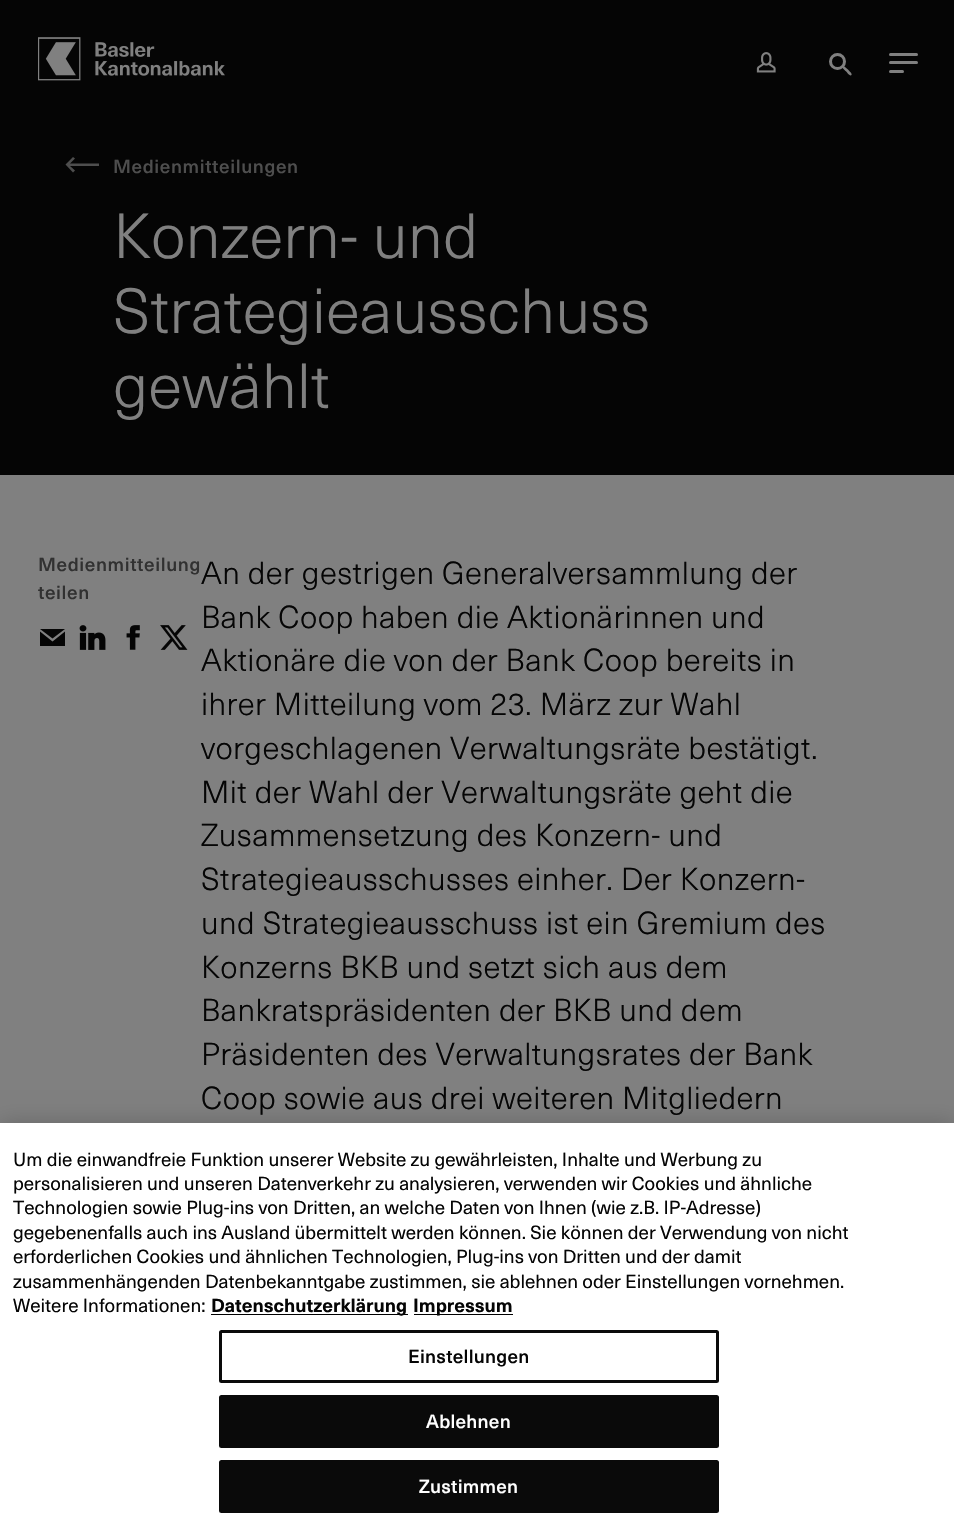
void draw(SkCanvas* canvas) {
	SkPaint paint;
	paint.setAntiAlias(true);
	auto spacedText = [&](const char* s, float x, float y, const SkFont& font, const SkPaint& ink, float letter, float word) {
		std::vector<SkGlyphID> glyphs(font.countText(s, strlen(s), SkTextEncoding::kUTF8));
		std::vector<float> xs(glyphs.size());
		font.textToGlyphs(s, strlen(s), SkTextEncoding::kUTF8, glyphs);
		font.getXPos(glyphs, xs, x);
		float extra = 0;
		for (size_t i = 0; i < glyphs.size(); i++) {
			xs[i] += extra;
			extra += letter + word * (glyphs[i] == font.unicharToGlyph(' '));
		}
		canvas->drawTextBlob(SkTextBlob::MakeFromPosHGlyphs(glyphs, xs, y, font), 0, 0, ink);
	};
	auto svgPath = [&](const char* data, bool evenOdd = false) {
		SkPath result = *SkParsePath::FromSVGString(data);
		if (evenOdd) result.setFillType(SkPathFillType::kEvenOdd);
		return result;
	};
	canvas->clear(0xff808080);
	paint.setColor(0xff050505);
	canvas->drawRect(SkRect::MakeXYWH(0, 0, 954, 475), paint);
	canvas->drawImageRect(SkImages::DeferredFromEncodedData(SkData::MakeFromFileName("img1.png")), SkRect::MakeXYWH(38, 37, 187, 44), SkSamplingOptions());
	canvas->drawImageRect(SkImages::DeferredFromEncodedData(SkData::MakeFromFileName("img2.png")), SkRect::MakeXYWH(756, 52, 20, 21), SkSamplingOptions());
	paint.setStroke(true);
	paint.setStrokeWidth(3);
	paint.setColor(0xff808080);
	canvas->drawCircle(837.5, 61.5, 7, paint);
	paint.setStroke(false);
	canvas->drawPath(svgPath("M845 67L848.5 70C849 71 852.5 73.5 851.5 75C850 77 846.5 71.5 845.5 71L843 68.5C842.5 67 844 66 845 67Z"), paint);
	canvas->drawRoundRect(SkRect::MakeXYWH(889, 53, 29, 3), 1.5, 1.5, paint);
	canvas->drawRoundRect(SkRect::MakeXYWH(889, 70, 15, 3), 1.5, 1.5, paint);
	canvas->drawRoundRect(SkRect::MakeXYWH(889, 61, 29, 3), 1.5, 1.5, paint);
	paint.setColor(0xff4e4e4e);
	canvas->drawPath(svgPath("M73 172.5L75 170.5L70 166H99V163.5H70L75 158.5L73 157L65.5 164.5Z", true), paint);
	SkFont f1(fontMgr->matchFamilyStyle("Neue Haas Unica", SkFontStyle(500, SkFontStyle::kNormal_Width, SkFontStyle::kUpright_Slant)), 18.75);
	f1.setSubpixel(true);
	spacedText("Medienmitteilungen", 113, 173, f1, paint, 0.6, 0);
	SkFont f2(fontMgr->matchFamilyStyle("Neue Haas Unica", SkFontStyle(300, SkFontStyle::kNormal_Width, SkFontStyle::kUpright_Slant)), 62.5);
	f2.setSubpixel(true);
	paint.setColor(0xff808080);
	canvas->drawString("Konzern- und", 113, 258, f2, paint);
	canvas->drawString("Strategieausschuss", 113, 333, f2, paint);
	canvas->drawString("gewählt", 113, 408, f2, paint);
	paint.setColor(0xff313131);
	spacedText("Medienmitteilung", 38, 571, f1, paint, 0.6, 0);
	spacedText("teilen", 38, 599, f1, paint, 0.6, 0);
	paint.setColor(0xff050505);
	canvas->drawPath(svgPath("M65 629L52.5 638.5L40 629ZM65 646H40V631.5L52.5 641.5L65 631.5Z", true), paint);
	canvas->drawImageRect(SkImages::DeferredFromEncodedData(SkData::MakeFromFileName("img3.png")), SkRect::MakeXYWH(79, 625, 27, 25), SkSamplingOptions());
	canvas->drawImageRect(SkImages::DeferredFromEncodedData(SkData::MakeFromFileName("img4.png")), SkRect::MakeXYWH(126, 625, 14, 25), SkSamplingOptions());
	canvas->drawImageRect(SkImages::DeferredFromEncodedData(SkData::MakeFromFileName("img5.png")), SkRect::MakeXYWH(160, 625, 28, 25), SkSamplingOptions());
	SkFont f3(fontMgr->matchFamilyStyle("Neue Haas Unica", SkFontStyle(300, SkFontStyle::kNormal_Width, SkFontStyle::kUpright_Slant)), 31.25);
	f3.setSubpixel(true);
	spacedText("An der gestrigen Generalversammlung der", 201, 584, f3, paint, 0.4, 0);
	spacedText("Bank Coop haben die Aktionärinnen und", 201, 628, f3, paint, 0.4, 0);
	spacedText("Aktionäre die von der Bank Coop bereits in", 201, 671, f3, paint, 0.4, 0);
	spacedText("ihrer Mitteilung vom 23. März zur Wahl", 201, 715, f3, paint, 0.4, 0);
	spacedText("vorgeschlagenen Verwaltungsräte bestätigt.", 201, 759, f3, paint, 0.4, 0);
	spacedText("Mit der Wahl der Verwaltungsräte geht die", 201, 803, f3, paint, 0.4, 0);
	spacedText("Zusammensetzung des Konzern- und", 201, 846, f3, paint, 0.4, 0);
	spacedText("Strategieausschusses einher. Der Konzern-", 201, 890, f3, paint, 0.4, 0);
	spacedText("und Strategieausschuss ist ein Gremium des", 201, 934, f3, paint, 0.4, 0);
	spacedText("Konzerns BKB und setzt sich aus dem", 201, 978, f3, paint, 0.4, 0);
	spacedText("Bankratspräsidenten der BKB und dem", 201, 1021, f3, paint, 0.4, 0);
	spacedText("Präsidenten des Verwaltungsrates der Bank", 201, 1065, f3, paint, 0.4, 0);
	spacedText("Coop sowie aus drei weiteren Mitgliedern", 201, 1109, f3, paint, 0.4, 0);
	paint.setColor(0x33000000);
	paint.setMaskFilter(SkMaskFilter::MakeBlur(kNormal_SkBlurStyle, 11));
	canvas->drawRect(SkRect::MakeXYWH(0, 1123, 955, 402), paint);
	paint.setMaskFilter(nullptr);
	paint.setColor(0xffffffff);
	canvas->drawRect(SkRect::MakeXYWH(0, 1123, 954, 402), paint);
	SkFont f4(fontMgr->matchFamilyStyle("Neue Haas Unica", SkFontStyle::Normal()), 18.75);
	f4.setSubpixel(true);
	paint.setColor(0xff050505);
	canvas->drawString("Um die einwandfreie Funktion unserer Website zu gewährleisten, Inhalte und Werbung zu", 13, 1166, f4, paint);
	canvas->drawString("personalisieren und unseren Datenverkehr zu analysieren, verwenden wir Cookies und ähnliche", 13, 1190, f4, paint);
	canvas->save();
	canvas->clipRect(SkRect::MakeXYWH(13, 1148, 867, 170));
	canvas->drawString("Technologien sowie Plug-ins von Dritten, an welche Daten von Ihnen (wie z.B. IP-Adresse)", 13, 1214, f4, paint);
	canvas->restore();
	canvas->drawString("gegebenenfalls auch ins Ausland übermittelt werden können. Sie können der Verwendung von nicht", 13, 1239, f4, paint);
	canvas->drawString("erforderlichen Cookies und ähnlichen Technologien, Plug-ins von Dritten und der damit", 13, 1263, f4, paint);
	canvas->drawString("zusammenhängenden Datenbekanntgabe zustimmen, sie ablehnen oder Einstellungen vornehmen.", 13, 1288, f4, paint);
	canvas->drawString("Weitere Informationen:", 13, 1312, f4, paint);
	paint.setColor(0xff000000);
	canvas->drawRect(SkRect::MakeXYWH(211, 1314, 197, 1), paint);
	SkFont f5(fontMgr->matchFamilyStyle("Neue Haas Unica", SkFontStyle::Bold()), 18.75);
	f5.setSubpixel(true);
	paint.setColor(0xff050505);
	canvas->drawString("Datenschutzerklärung", 211, 1312, f5, paint);
	paint.setColor(0xff000000);
	canvas->drawRect(SkRect::MakeXYWH(414, 1314, 99, 1), paint);
	paint.setColor(0xff050505);
	canvas->drawString("Impressum", 413, 1312, f5, paint);
	paint.setStroke(true);
	paint.setColor(0xff0a0a0a);
	canvas->drawRoundRect(SkRect::MakeXYWH(220.5, 1331.5, 497, 50), 1, 1, paint);
	paint.setStroke(false);
	paint.setColor(0xff050505);
	spacedText("Einstellungen", 408, 1363, f1, paint, 0.25, 0);
	paint.setColor(0xff0a0a0a);
	canvas->drawRoundRect(SkRect::MakeXYWH(219, 1395, 500, 53), 2.5, 2.5, paint);
	paint.setColor(0xffffffff);
	spacedText("Ablehnen", 426, 1428, f1, paint, 0.25, 0);
	paint.setColor(0xff0a0a0a);
	canvas->drawRoundRect(SkRect::MakeXYWH(219, 1460, 500, 53), 2.5, 2.5, paint);
	paint.setColor(0xffffffff);
	spacedText("Zustimmen", 419, 1493, f1, paint, 0.25, 0);
}
